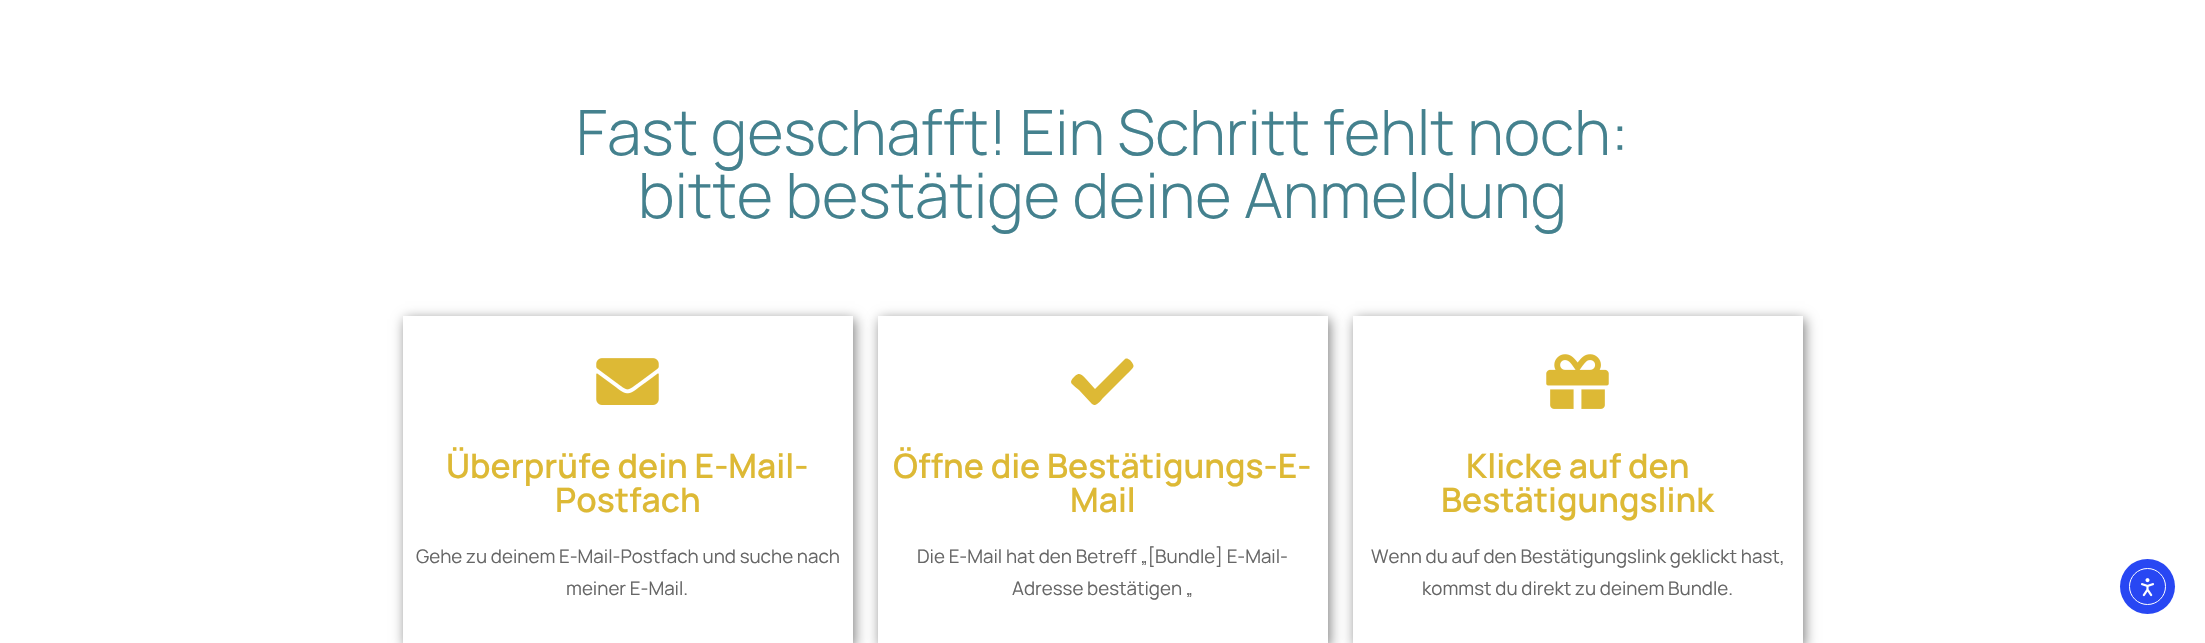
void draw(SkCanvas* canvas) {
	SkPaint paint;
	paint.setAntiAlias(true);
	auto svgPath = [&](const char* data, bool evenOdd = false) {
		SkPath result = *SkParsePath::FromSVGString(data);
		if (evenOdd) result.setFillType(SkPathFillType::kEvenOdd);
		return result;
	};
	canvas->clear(0xffffffff);
	SkFont f1(fontMgr->matchFamilyStyle("Manrope", SkFontStyle(300, SkFontStyle::kNormal_Width, SkFontStyle::kUpright_Slant)), 62.5);
	f1.setSubpixel(true);
	paint.setColor(0xff44818e);
	canvas->drawString("Fast geschafft! Ein Schritt fehlt noch:", 576, 155, f1, paint);
	canvas->drawString("bitte bestätige deine Anmeldung", 638, 218, f1, paint);
	paint.setColor(0x80000000);
	paint.setMaskFilter(SkMaskFilter::MakeBlur(kNormal_SkBlurStyle, 6));
	canvas->drawRect(SkRect::MakeXYWH(405, 319, 450, 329), paint);
	paint.setMaskFilter(nullptr);
	paint.setColor(0xffffffff);
	canvas->drawRect(SkRect::MakeXYWH(403, 316, 450, 327), paint);
	canvas->drawImageRect(SkImages::DeferredFromEncodedData(SkData::MakeFromFileName("img1.png")), SkRect::MakeXYWH(596, 358, 63, 47), SkSamplingOptions());
	SkFont f2(fontMgr->matchFamilyStyle("Manrope", SkFontStyle(600, SkFontStyle::kNormal_Width, SkFontStyle::kUpright_Slant)), 33.75);
	f2.setSubpixel(true);
	paint.setColor(0xffddb935);
	canvas->drawString("Überprüfe dein E-Mail-", 446, 478, f2, paint);
	canvas->drawString("Postfach", 555, 512, f2, paint);
	SkFont f3(fontMgr->matchFamilyStyle("Manrope", SkFontStyle::Normal()), 18.75);
	f3.setSubpixel(true);
	paint.setColor(0xff666666);
	canvas->drawString("Gehe zu deinem E-Mail-Postfach und suche nach", 416, 563, f3, paint);
	canvas->drawString("meiner E-Mail.", 566, 595, f3, paint);
	paint.setColor(0x80000000);
	paint.setMaskFilter(SkMaskFilter::MakeBlur(kNormal_SkBlurStyle, 6));
	canvas->drawRect(SkRect::MakeXYWH(880, 319, 450, 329), paint);
	paint.setMaskFilter(nullptr);
	paint.setColor(0xffffffff);
	canvas->drawRect(SkRect::MakeXYWH(878, 316, 450, 327), paint);
	paint.setColor(0xffddb935);
	canvas->drawPath(svgPath("M1092 404L1079 390C1071 383 1068 383 1075 376C1080 372 1082 375 1086 379L1095 389L1125 359C1127 358 1128 359 1130 360C1136 367 1134 367 1127 374L1103 398C1102 399 1097 406 1094 405Z"), paint);
	canvas->drawString("Öffne die Bestätigungs-E-", 893, 478, f2, paint);
	canvas->drawString("Mail", 1070, 512, f2, paint);
	paint.setColor(0xff666666);
	canvas->drawString("Die E-Mail hat den Betreff „[Bundle] E-Mail-", 917, 563, f3, paint);
	canvas->drawString("Adresse bestätigen „", 1012, 595, f3, paint);
	paint.setColor(0x80000000);
	paint.setMaskFilter(SkMaskFilter::MakeBlur(kNormal_SkBlurStyle, 6));
	canvas->drawRect(SkRect::MakeXYWH(1355, 319, 450, 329), paint);
	paint.setMaskFilter(nullptr);
	paint.setColor(0xffffffff);
	canvas->drawRect(SkRect::MakeXYWH(1353, 316, 450, 327), paint);
	canvas->drawImageRect(SkImages::DeferredFromEncodedData(SkData::MakeFromFileName("img2.png")), SkRect::MakeXYWH(1546, 354, 63, 55), SkSamplingOptions());
	paint.setColor(0xffddb935);
	canvas->drawString("Klicke auf den", 1466, 478, f2, paint);
	canvas->drawString("Bestätigungslink", 1441, 512, f2, paint);
	paint.setColor(0xff666666);
	canvas->drawString("Wenn du auf den Bestätigungslink geklickt hast,", 1371, 563, f3, paint);
	canvas->drawString("kommst du direkt zu deinem Bundle.", 1422, 595, f3, paint);
	paint.setColor(0xff2847f3);
	canvas->drawCircle(2147.5, 586.5, 27.5, paint);
	paint.setStroke(true);
	paint.setStrokeWidth(1);
	paint.setColor(0xffffffff);
	canvas->drawCircle(2147.5, 586.5, 18, paint);
	canvas->drawImageRect(SkImages::DeferredFromEncodedData(SkData::MakeFromFileName("img3.png")), SkRect::MakeXYWH(2141, 578, 13, 19), SkSamplingOptions());
}
